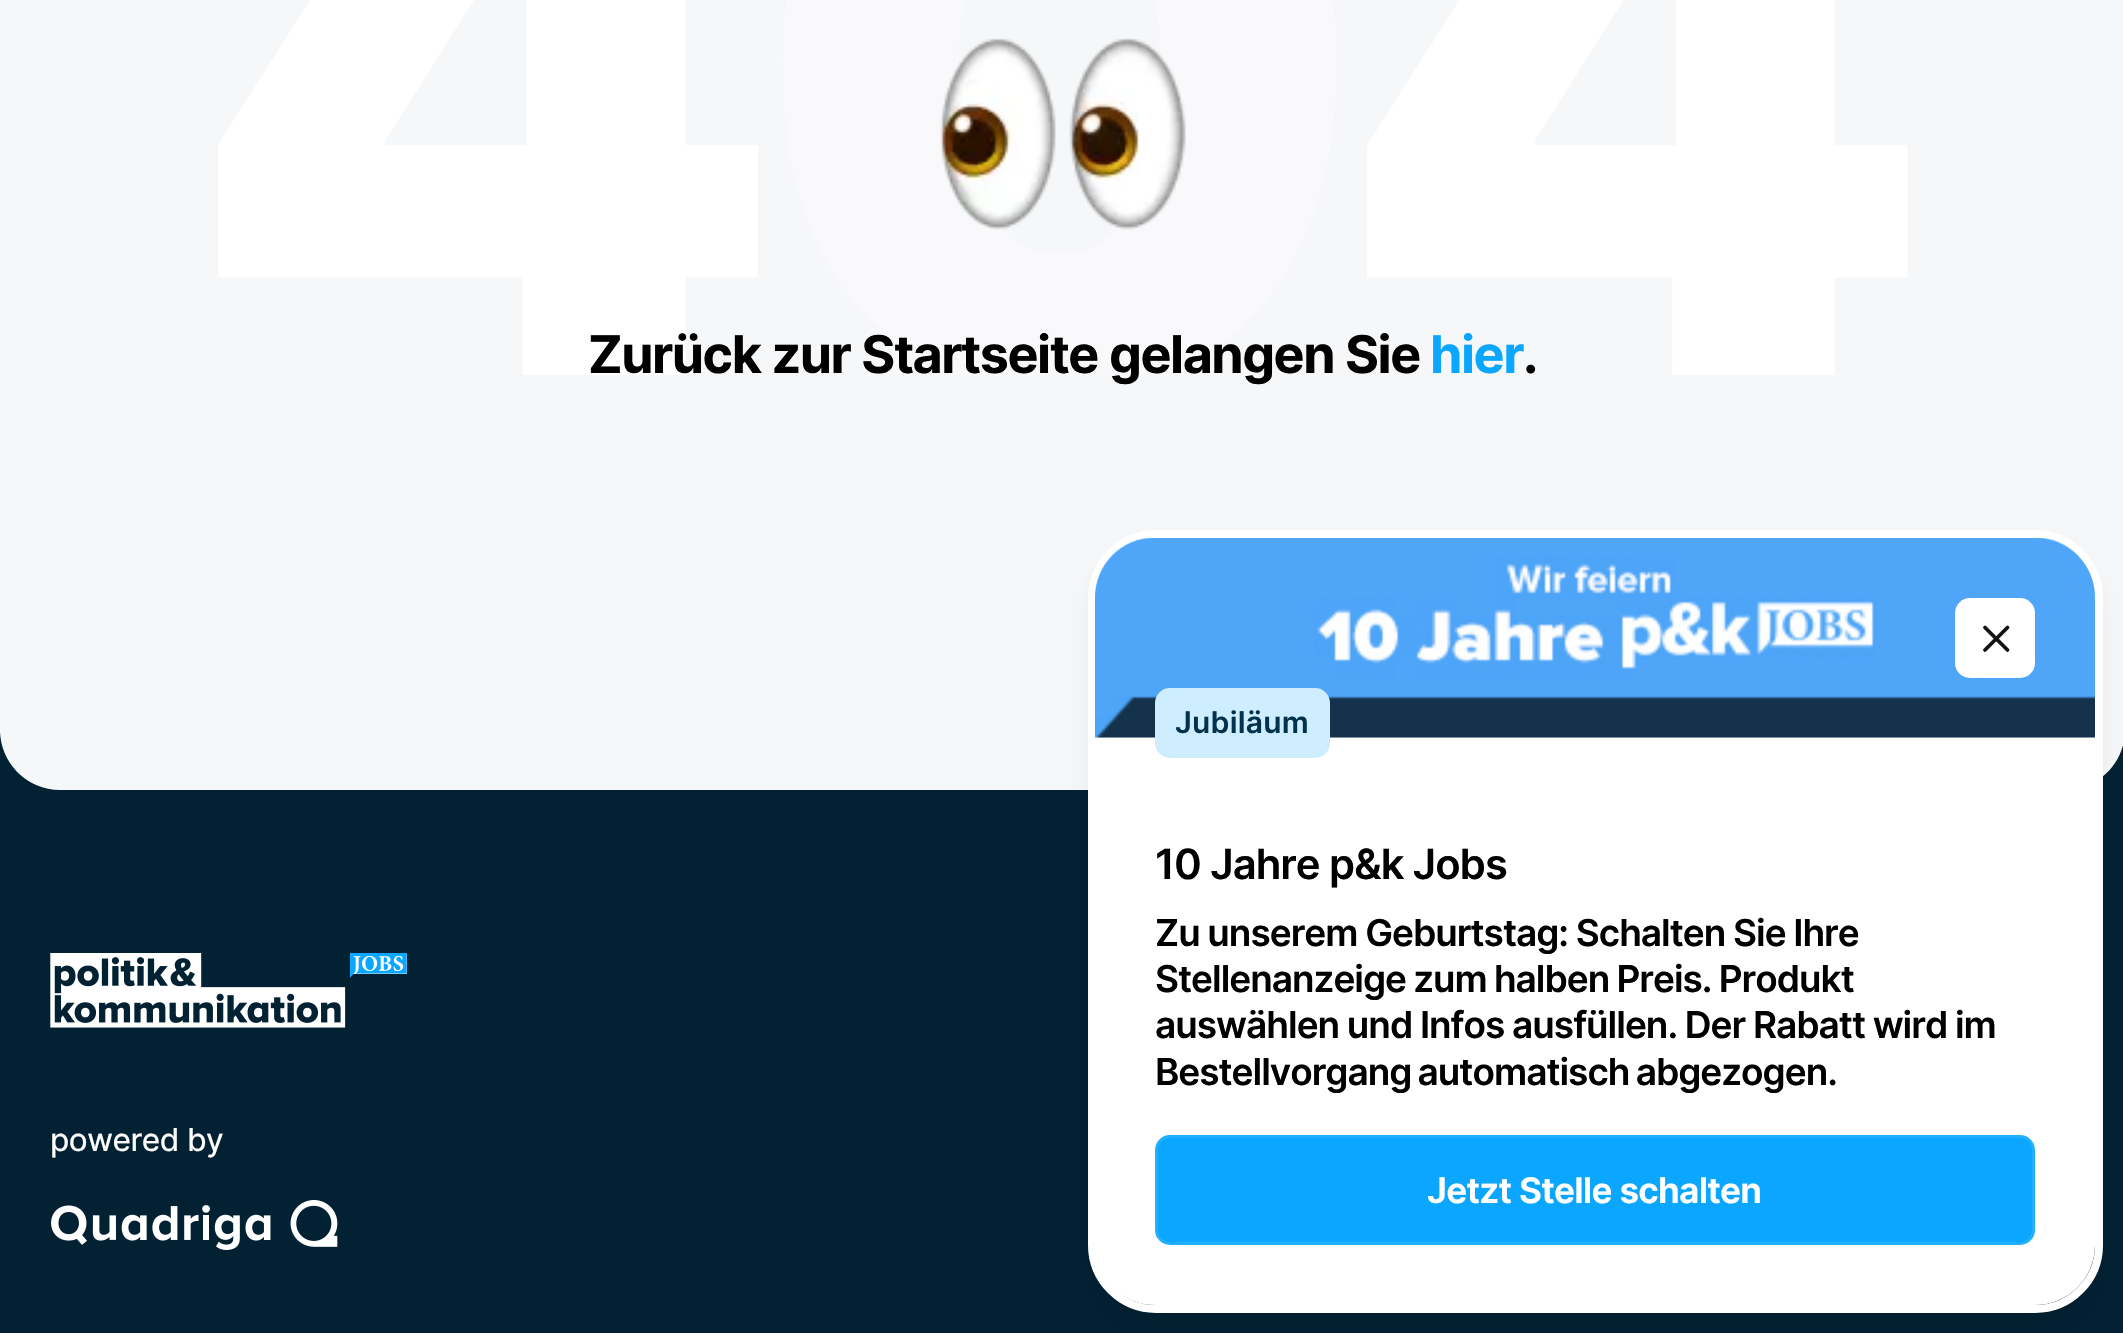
void draw(SkCanvas* canvas) {
	SkPaint paint;
	paint.setAntiAlias(true);
	auto spacedText = [&](const char* s, float x, float y, const SkFont& font, const SkPaint& ink, float letter, float word) {
		std::vector<SkGlyphID> glyphs(font.countText(s, strlen(s), SkTextEncoding::kUTF8));
		std::vector<float> xs(glyphs.size());
		font.textToGlyphs(s, strlen(s), SkTextEncoding::kUTF8, glyphs);
		font.getXPos(glyphs, xs, x);
		float extra = 0;
		for (size_t i = 0; i < glyphs.size(); i++) {
			xs[i] += extra;
			extra += letter + word * (glyphs[i] == font.unicharToGlyph(' '));
		}
		canvas->drawTextBlob(SkTextBlob::MakeFromPosHGlyphs(glyphs, xs, y, font), 0, 0, ink);
	};
	auto svgPath = [&](const char* data, bool evenOdd = false) {
		SkPath result = *SkParsePath::FromSVGString(data);
		if (evenOdd) result.setFillType(SkPathFillType::kEvenOdd);
		return result;
	};
	canvas->clear(0xfff6f7f8);
	canvas->drawImageRect(SkImages::DeferredFromEncodedData(SkData::MakeFromFileName("img1.png")), SkRect::MakeXYWH(218, 0, 1690, 375), SkSamplingOptions());
	canvas->drawImageRect(SkImages::DeferredFromEncodedData(SkData::MakeFromFileName("img2.png")), SkRect::MakeXYWH(940, 38, 246, 192), SkSamplingOptions());
	SkFont f1(fontMgr->matchFamilyStyle("Inter", SkFontStyle::Bold()), 52);
	f1.setSubpixel(true);
	paint.setColor(0xff000000);
	spacedText("Zurück zur Startseite gelangen Sie", 588, 373, f1, paint, -1.5, 0.5);
	paint.setColor(0xff0aa6ff);
	spacedText("hier", 1430, 373, f1, paint, -1.5, 0);
	paint.setColor(0xff000000);
	spacedText(".", 1523, 373, f1, paint, -1.5, 0);
	paint.setColor(0xff022133);
	canvas->drawRect(SkRect::MakeXYWH(0, 733, 2123, 600), paint);
	paint.setColor(0xfff6f7f8);
	canvas->drawPath(svgPath("M0 730H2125C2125 763 2098 790 2065 790H60C27 790 0 763 0 730Z"), paint);
	canvas->drawImageRect(SkImages::DeferredFromEncodedData(SkData::MakeFromFileName("img3.png")), SkRect::MakeXYWH(50, 953, 357, 75), SkSamplingOptions());
	SkFont f2(fontMgr->matchFamilyStyle("Inter", SkFontStyle::Normal()), 31.5);
	f2.setSubpixel(true);
	paint.setColor(0xffffffff);
	spacedText("powered by", 50, 1151, f2, paint, -0.5, 0);
	canvas->drawImageRect(SkImages::DeferredFromEncodedData(SkData::MakeFromFileName("img4.png")), SkRect::MakeXYWH(51, 1200, 287, 50), SkSamplingOptions());
	paint.setColor(0x0d000000);
	paint.setMaskFilter(SkMaskFilter::MakeBlur(kNormal_SkBlurStyle, 7.5));
	canvas->drawRoundRect(SkRect::MakeXYWH(1100, 553, 990, 757), 55, 55, paint);
	paint.setMaskFilter(nullptr);
	paint.setColor(0x1a000000);
	paint.setMaskFilter(SkMaskFilter::MakeBlur(kNormal_SkBlurStyle, 19));
	canvas->drawRoundRect(SkRect::MakeXYWH(1103, 570, 985, 753), 53, 53, paint);
	paint.setMaskFilter(nullptr);
	paint.setColor(0x12141414);
	paint.setMaskFilter(SkMaskFilter::MakeBlur(kNormal_SkBlurStyle, 2.5));
	canvas->drawRoundRect(SkRect::MakeXYWH(1095, 538, 1000, 767), 60, 60, paint);
	paint.setMaskFilter(nullptr);
	paint.setColor(0xffffffff);
	canvas->drawRoundRect(SkRect::MakeXYWH(1095, 538, 1000, 767), 60, 60, paint);
	paint.setColor(0xff0aa6ff);
	canvas->drawRoundRect(SkRect::MakeXYWH(1156.5, 1136.5, 877, 107), 13.5, 13.5, paint);
	paint.setStroke(true);
	paint.setStrokeWidth(3);
	paint.setColor(0xff23afff);
	canvas->drawRoundRect(SkRect::MakeXYWH(1156.5, 1136.5, 877, 107), 13.5, 13.5, paint);
	paint.setStrokeWidth(8);
	paint.setColor(0xffffffff);
	canvas->drawRoundRect(SkRect::MakeXYWH(1092, 534, 1007, 775), 64, 64, paint);
	paint.setStroke(false);
	paint.setColor(0xffe7f6ff);
	canvas->drawPath(svgPath("M1155 538H2035C2068 538 2095 565 2095 598V738H1095V598C1095 565 1122 538 1155 538Z"), paint);
	canvas->drawImageRect(SkImages::DeferredFromEncodedData(SkData::MakeFromFileName("img5.png")), SkRect::MakeXYWH(1095, 538, 1000, 200), SkSamplingOptions());
	paint.setColor(0xffffffff);
	canvas->drawRoundRect(SkRect::MakeXYWH(1955, 598, 80, 80), 15, 15, paint);
	paint.setStroke(true);
	paint.setStrokeWidth(3.8);
	paint.setStrokeCap(SkPaint::kRound_Cap);
	paint.setStrokeJoin(SkPaint::kRound_Join);
	paint.setColor(0xff141414);
	canvas->drawPath(svgPath("M2007.5 627.5L1985 650M1985 627.5L2007.5 650"), paint);
	paint.setStroke(false);
	paint.setColor(0xffceedff);
	canvas->drawRoundRect(SkRect::MakeXYWH(1155, 688, 175, 70), 15, 15, paint);
	SkFont f3(fontMgr->matchFamilyStyle("Inter", SkFontStyle(600, SkFontStyle::kNormal_Width, SkFontStyle::kUpright_Slant)), 30);
	f3.setSubpixel(true);
	paint.setColor(0xff03324d);
	spacedText("Jubiläum", 1175, 733, f3, paint, 0.25, 0);
	SkFont f4(fontMgr->matchFamilyStyle("Inter", SkFontStyle(600, SkFontStyle::kNormal_Width, SkFontStyle::kUpright_Slant)), 41.75);
	f4.setSubpixel(true);
	paint.setColor(0xff000000);
	spacedText("10 Jahre p&k Jobs", 1155, 879, f4, paint, -1, 0);
	SkFont f5(fontMgr->matchFamilyStyle("Inter", SkFontStyle(600, SkFontStyle::kNormal_Width, SkFontStyle::kUpright_Slant)), 37);
	f5.setSubpixel(true);
	spacedText("Zu unserem Geburtstag: Schalten Sie Ihre", 1155, 946, f5, paint, -1, -0.5);
	spacedText("Stellenanzeige zum halben Preis. Produkt", 1155, 992, f5, paint, -1, -1);
	spacedText("auswählen und Infos ausfüllen. Der Rabatt wird im", 1155, 1038, f5, paint, -1, -0.5);
	spacedText("Bestellvorgang automatisch abgezogen.", 1155, 1085, f5, paint, -1, -2);
	SkFont f6(fontMgr->matchFamilyStyle("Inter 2", SkFontStyle(600, SkFontStyle::kNormal_Width, SkFontStyle::kUpright_Slant)), 35.25);
	f6.setSubpixel(true);
	paint.setColor(0xffffffff);
	spacedText("Jetzt Stelle schalten", 1427, 1203, f6, paint, -0.75, 0);
}
